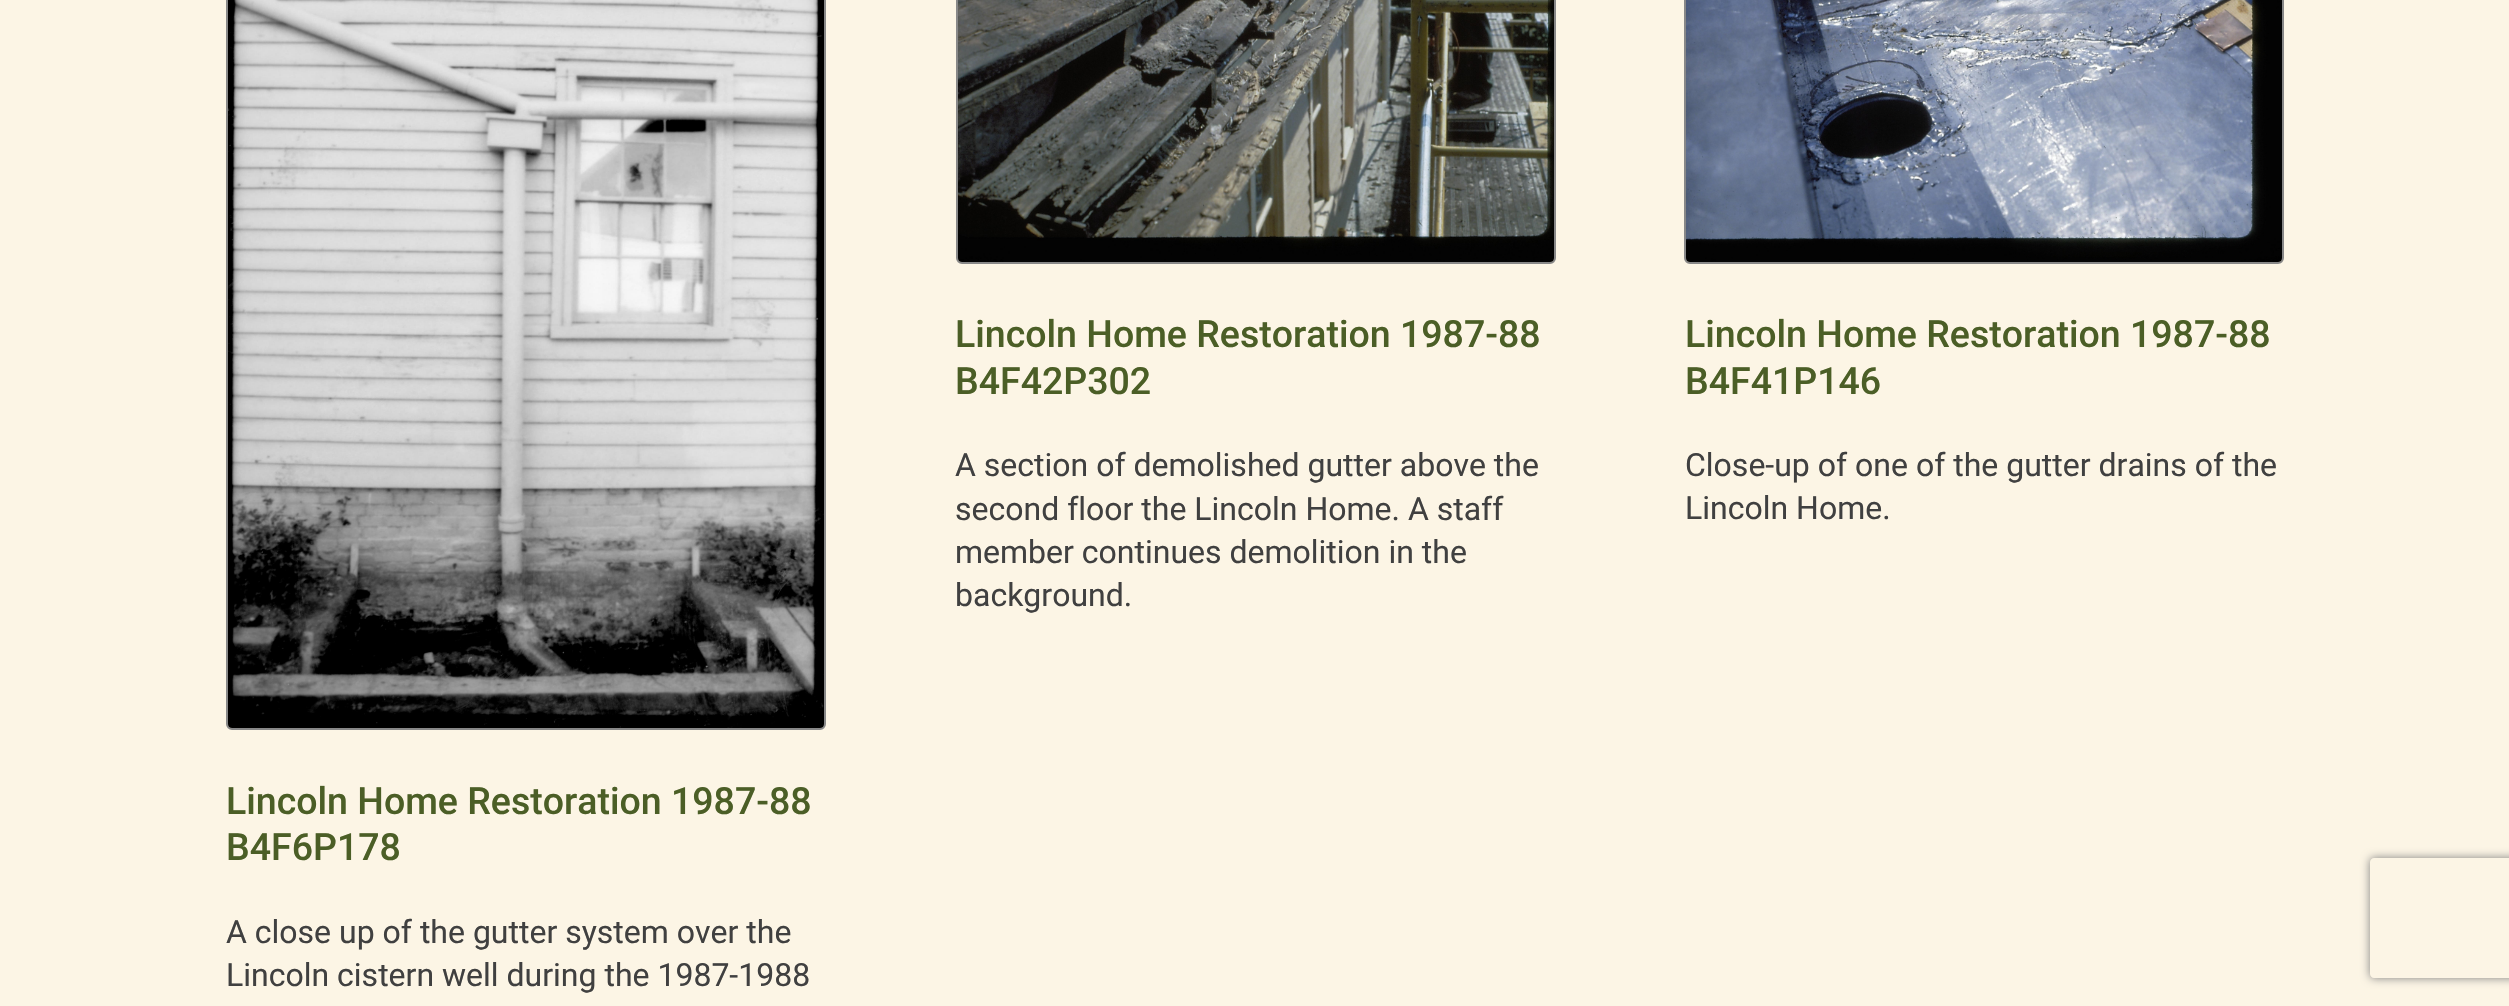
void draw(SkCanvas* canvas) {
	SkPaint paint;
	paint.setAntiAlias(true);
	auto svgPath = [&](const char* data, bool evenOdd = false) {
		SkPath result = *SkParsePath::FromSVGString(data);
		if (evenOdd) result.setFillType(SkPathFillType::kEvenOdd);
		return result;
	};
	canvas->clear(0xfffcf5e5);
	paint.setStroke(true);
	paint.setStrokeWidth(2);
	paint.setColor(0xff888888);
	canvas->drawRoundRect(SkRect::MakeXYWH(957, -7, 598, 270), 5, 5, paint);
	canvas->drawImageRect(SkImages::DeferredFromEncodedData(SkData::MakeFromFileName("img1.png")), SkRect::MakeXYWH(958, 0, 596, 262), SkSamplingOptions());
	SkFont f1(fontMgr->matchFamilyStyle("Roboto", SkFontStyle(500, SkFontStyle::kNormal_Width, SkFontStyle::kUpright_Slant)), 37.5);
	f1.setSubpixel(true);
	paint.setStroke(false);
	paint.setColor(0xff4b5e26);
	canvas->drawString("Lincoln Home Restoration 1987-88", 955, 347, f1, paint);
	canvas->drawString("B4F42P302", 955, 394, f1, paint);
	SkFont f2(fontMgr->matchFamilyStyle("Roboto", SkFontStyle::Normal()), 32);
	f2.setSubpixel(true);
	paint.setColor(0xff404040);
	canvas->drawString("A section of demolished gutter above the", 955, 476, f2, paint);
	canvas->drawString("second floor the Lincoln Home. A staff", 955, 520, f2, paint);
	canvas->drawString("member continues demolition in the", 955, 563, f2, paint);
	canvas->drawString("background.", 955, 606, f2, paint);
	paint.setStroke(true);
	paint.setColor(0xff888888);
	canvas->drawRoundRect(SkRect::MakeXYWH(1685, -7, 598, 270), 5, 5, paint);
	canvas->drawImageRect(SkImages::DeferredFromEncodedData(SkData::MakeFromFileName("img2.png")), SkRect::MakeXYWH(1686, 0, 596, 262), SkSamplingOptions());
	paint.setStroke(false);
	paint.setColor(0xff4b5e26);
	canvas->drawString("Lincoln Home Restoration 1987-88", 1685, 347, f1, paint);
	canvas->drawString("B4F41P146", 1685, 394, f1, paint);
	paint.setColor(0xff404040);
	canvas->drawString("Close-up of one of the gutter drains of the", 1685, 476, f2, paint);
	canvas->drawString("Lincoln Home.", 1685, 519, f2, paint);
	paint.setStroke(true);
	paint.setColor(0xff888888);
	canvas->drawRoundRect(SkRect::MakeXYWH(227, -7, 598, 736), 5, 5, paint);
	canvas->drawImageRect(SkImages::DeferredFromEncodedData(SkData::MakeFromFileName("img3.png")), SkRect::MakeXYWH(228, 0, 596, 728), SkSamplingOptions());
	paint.setStroke(false);
	paint.setColor(0xff4b5e26);
	canvas->drawString("Lincoln Home Restoration 1987-88", 226, 814, f1, paint);
	canvas->drawString("B4F6P178", 226, 860, f1, paint);
	paint.setColor(0xff404040);
	canvas->drawString("A close up of the gutter system over the", 226, 943, f2, paint);
	canvas->drawString("Lincoln cistern well during the 1987-1988", 226, 986, f2, paint);
	canvas->save();
	canvas->clipPath(svgPath("M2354 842H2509V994H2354ZM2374 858H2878C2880 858 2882 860 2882 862V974C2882 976 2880 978 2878 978H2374C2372 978 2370 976 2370 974V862C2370 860 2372 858 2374 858Z", true), true);
	paint.setColor(0xff808080);
	paint.setMaskFilter(SkMaskFilter::MakeBlur(kNormal_SkBlurStyle, 5));
	canvas->drawRoundRect(SkRect::MakeXYWH(2370, 858, 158, 120), 4, 4, paint);
	paint.setMaskFilter(nullptr);
	canvas->restore();
}
